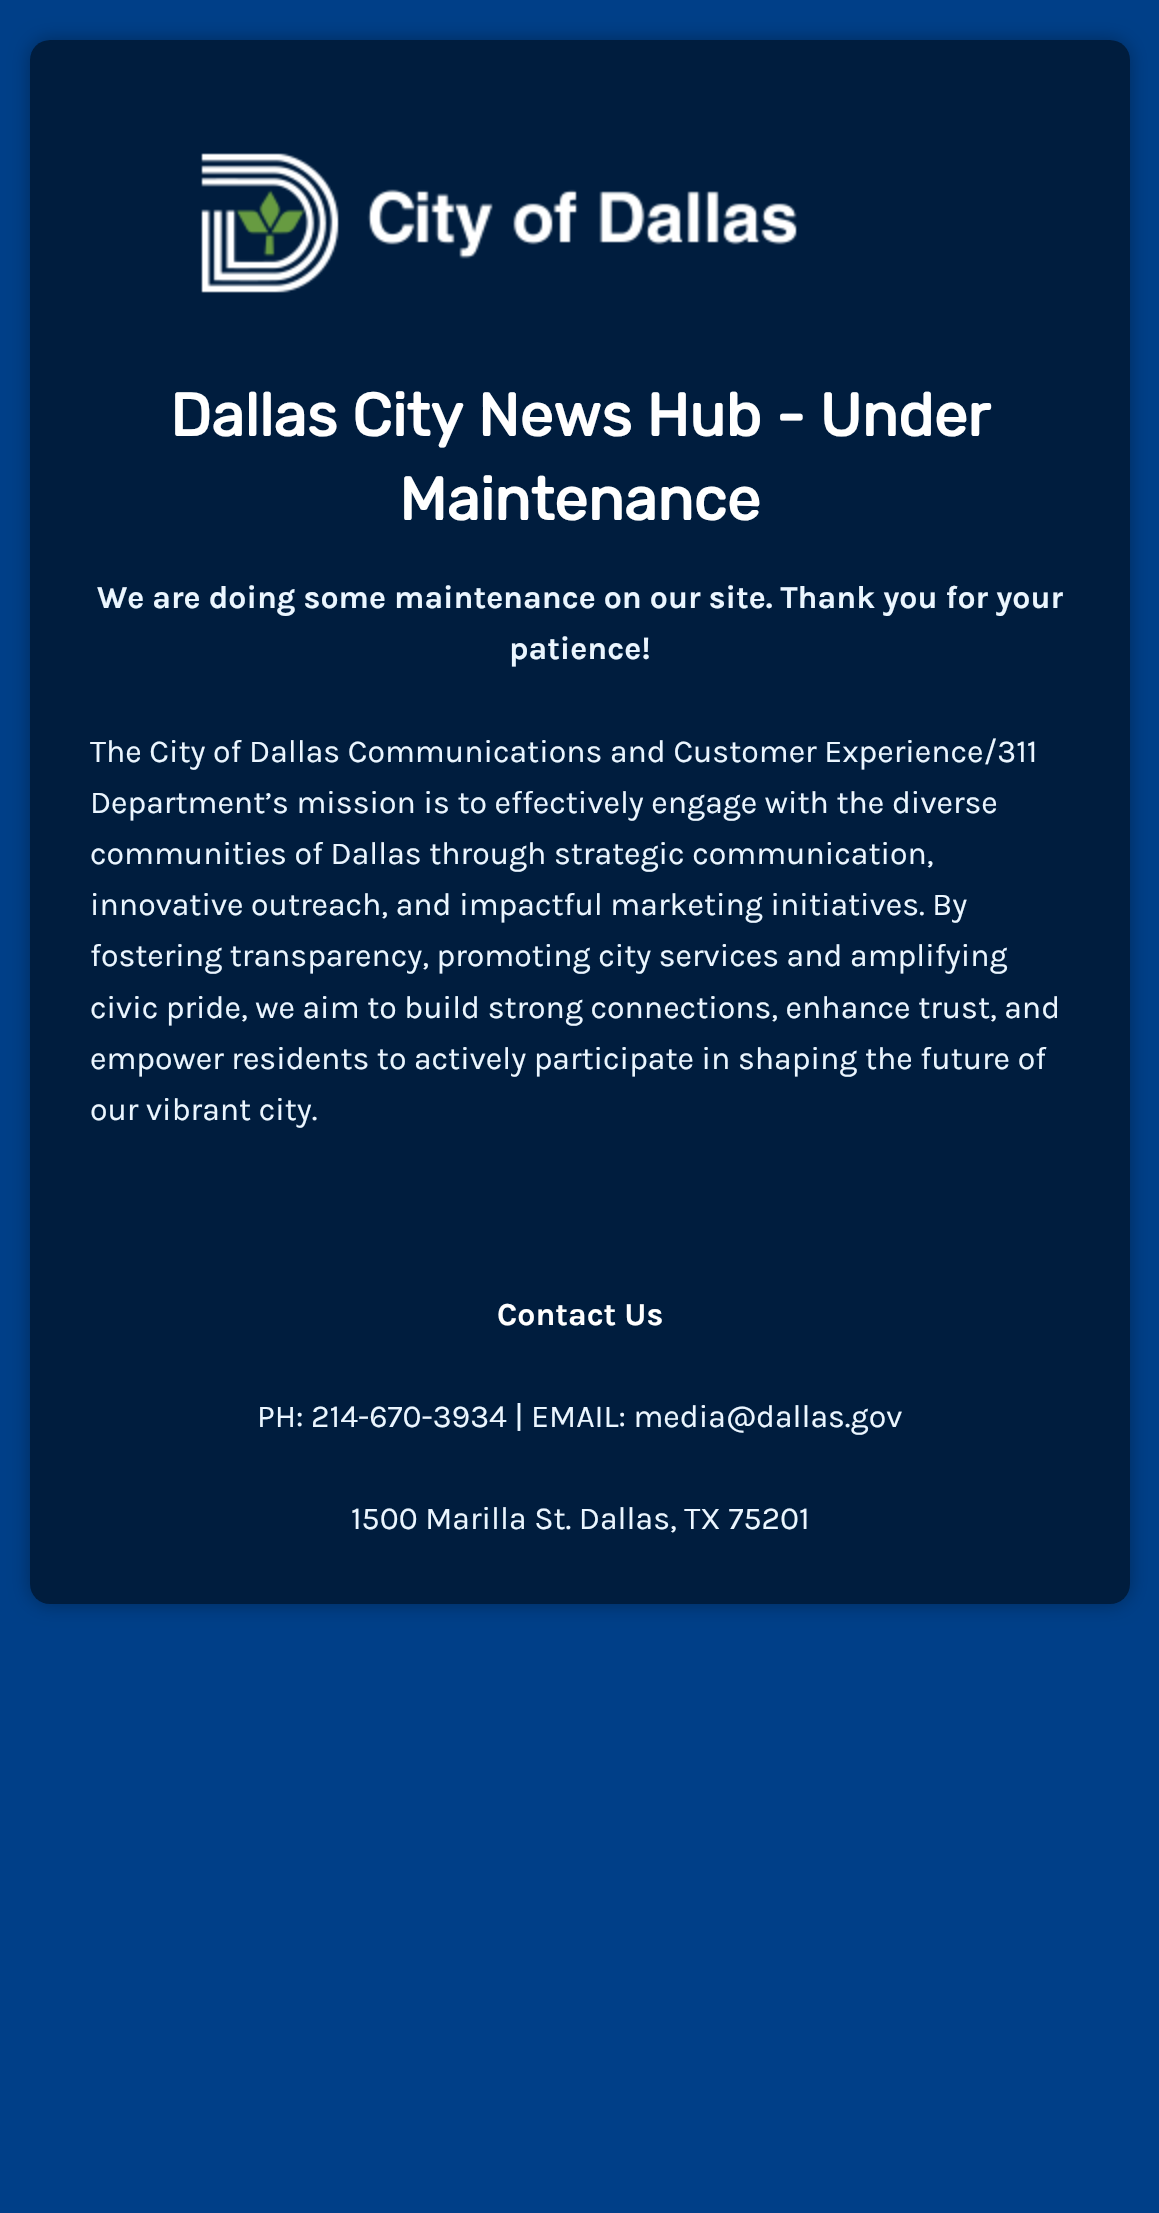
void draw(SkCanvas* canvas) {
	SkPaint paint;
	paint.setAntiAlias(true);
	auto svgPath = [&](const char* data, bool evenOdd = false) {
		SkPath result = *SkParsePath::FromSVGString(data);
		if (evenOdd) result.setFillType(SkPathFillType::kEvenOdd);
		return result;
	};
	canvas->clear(0xff003f88);
	canvas->save();
	canvas->clipPath(svgPath("M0 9H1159V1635H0ZM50 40H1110C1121 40 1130 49 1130 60V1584C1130 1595 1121 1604 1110 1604H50C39 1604 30 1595 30 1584V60C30 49 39 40 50 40Z", true), true);
	paint.setColor(0x54000000);
	paint.setMaskFilter(SkMaskFilter::MakeBlur(kNormal_SkBlurStyle, 10));
	canvas->drawRoundRect(SkRect::MakeXYWH(30, 40, 1100, 1564), 20, 20, paint);
	paint.setMaskFilter(nullptr);
	canvas->restore();
	paint.setColor(0x8c000000);
	canvas->drawRoundRect(SkRect::MakeXYWH(30, 40, 1100, 1564), 20, 20, paint);
	canvas->drawImageRect(SkImages::DeferredFromEncodedData(SkData::MakeFromFileName("img1.png")), SkRect::MakeXYWH(201, 153, 596, 140), SkSamplingOptions());
	SkFont f1(fontMgr->matchFamilyStyle("Rubik", SkFontStyle::Bold()), 60);
	f1.setSubpixel(true);
	paint.setColor(0xffffffff);
	canvas->drawString("Dallas City News Hub - Under", 170, 436, f1, paint);
	canvas->drawString("Maintenance", 399, 520, f1, paint);
	SkFont f2(fontMgr->matchFamilyStyle("Karla", SkFontStyle::Bold()), 32);
	f2.setSubpixel(true);
	paint.setColor(0xffebf6ff);
	canvas->drawString("We are doing some maintenance on our site. Thank you for your", 97, 608, f2, paint);
	canvas->drawString("patience!", 509, 659, f2, paint);
	SkFont f3(fontMgr->matchFamilyStyle("Karla", SkFontStyle::Normal()), 32);
	f3.setSubpixel(true);
	canvas->drawString("The City of Dallas Communications and Customer Experience/311", 90, 762, f3, paint);
	canvas->drawString("Department’s mission is to effectively engage with the diverse", 90, 813, f3, paint);
	canvas->drawString("communities of Dallas through strategic communication,", 90, 864, f3, paint);
	canvas->drawString("innovative outreach, and impactful marketing initiatives. By", 90, 915, f3, paint);
	canvas->drawString("fostering transparency, promoting city services and amplifying", 90, 966, f3, paint);
	canvas->drawString("civic pride, we aim to build strong connections, enhance trust, and", 90, 1018, f3, paint);
	canvas->drawString("empower residents to actively participate in shaping the future of", 90, 1069, f3, paint);
	canvas->drawString("our vibrant city.", 90, 1120, f3, paint);
	paint.setColor(0xffffffff);
	canvas->drawString("Contact Us", 497, 1325, f2, paint);
	paint.setColor(0xffebf6ff);
	canvas->drawString("PH: 214-670-3934 | EMAIL: media@dallas.gov", 257, 1427, f3, paint);
	canvas->drawString("1500 Marilla St. Dallas, TX 75201", 351, 1529, f3, paint);
}
